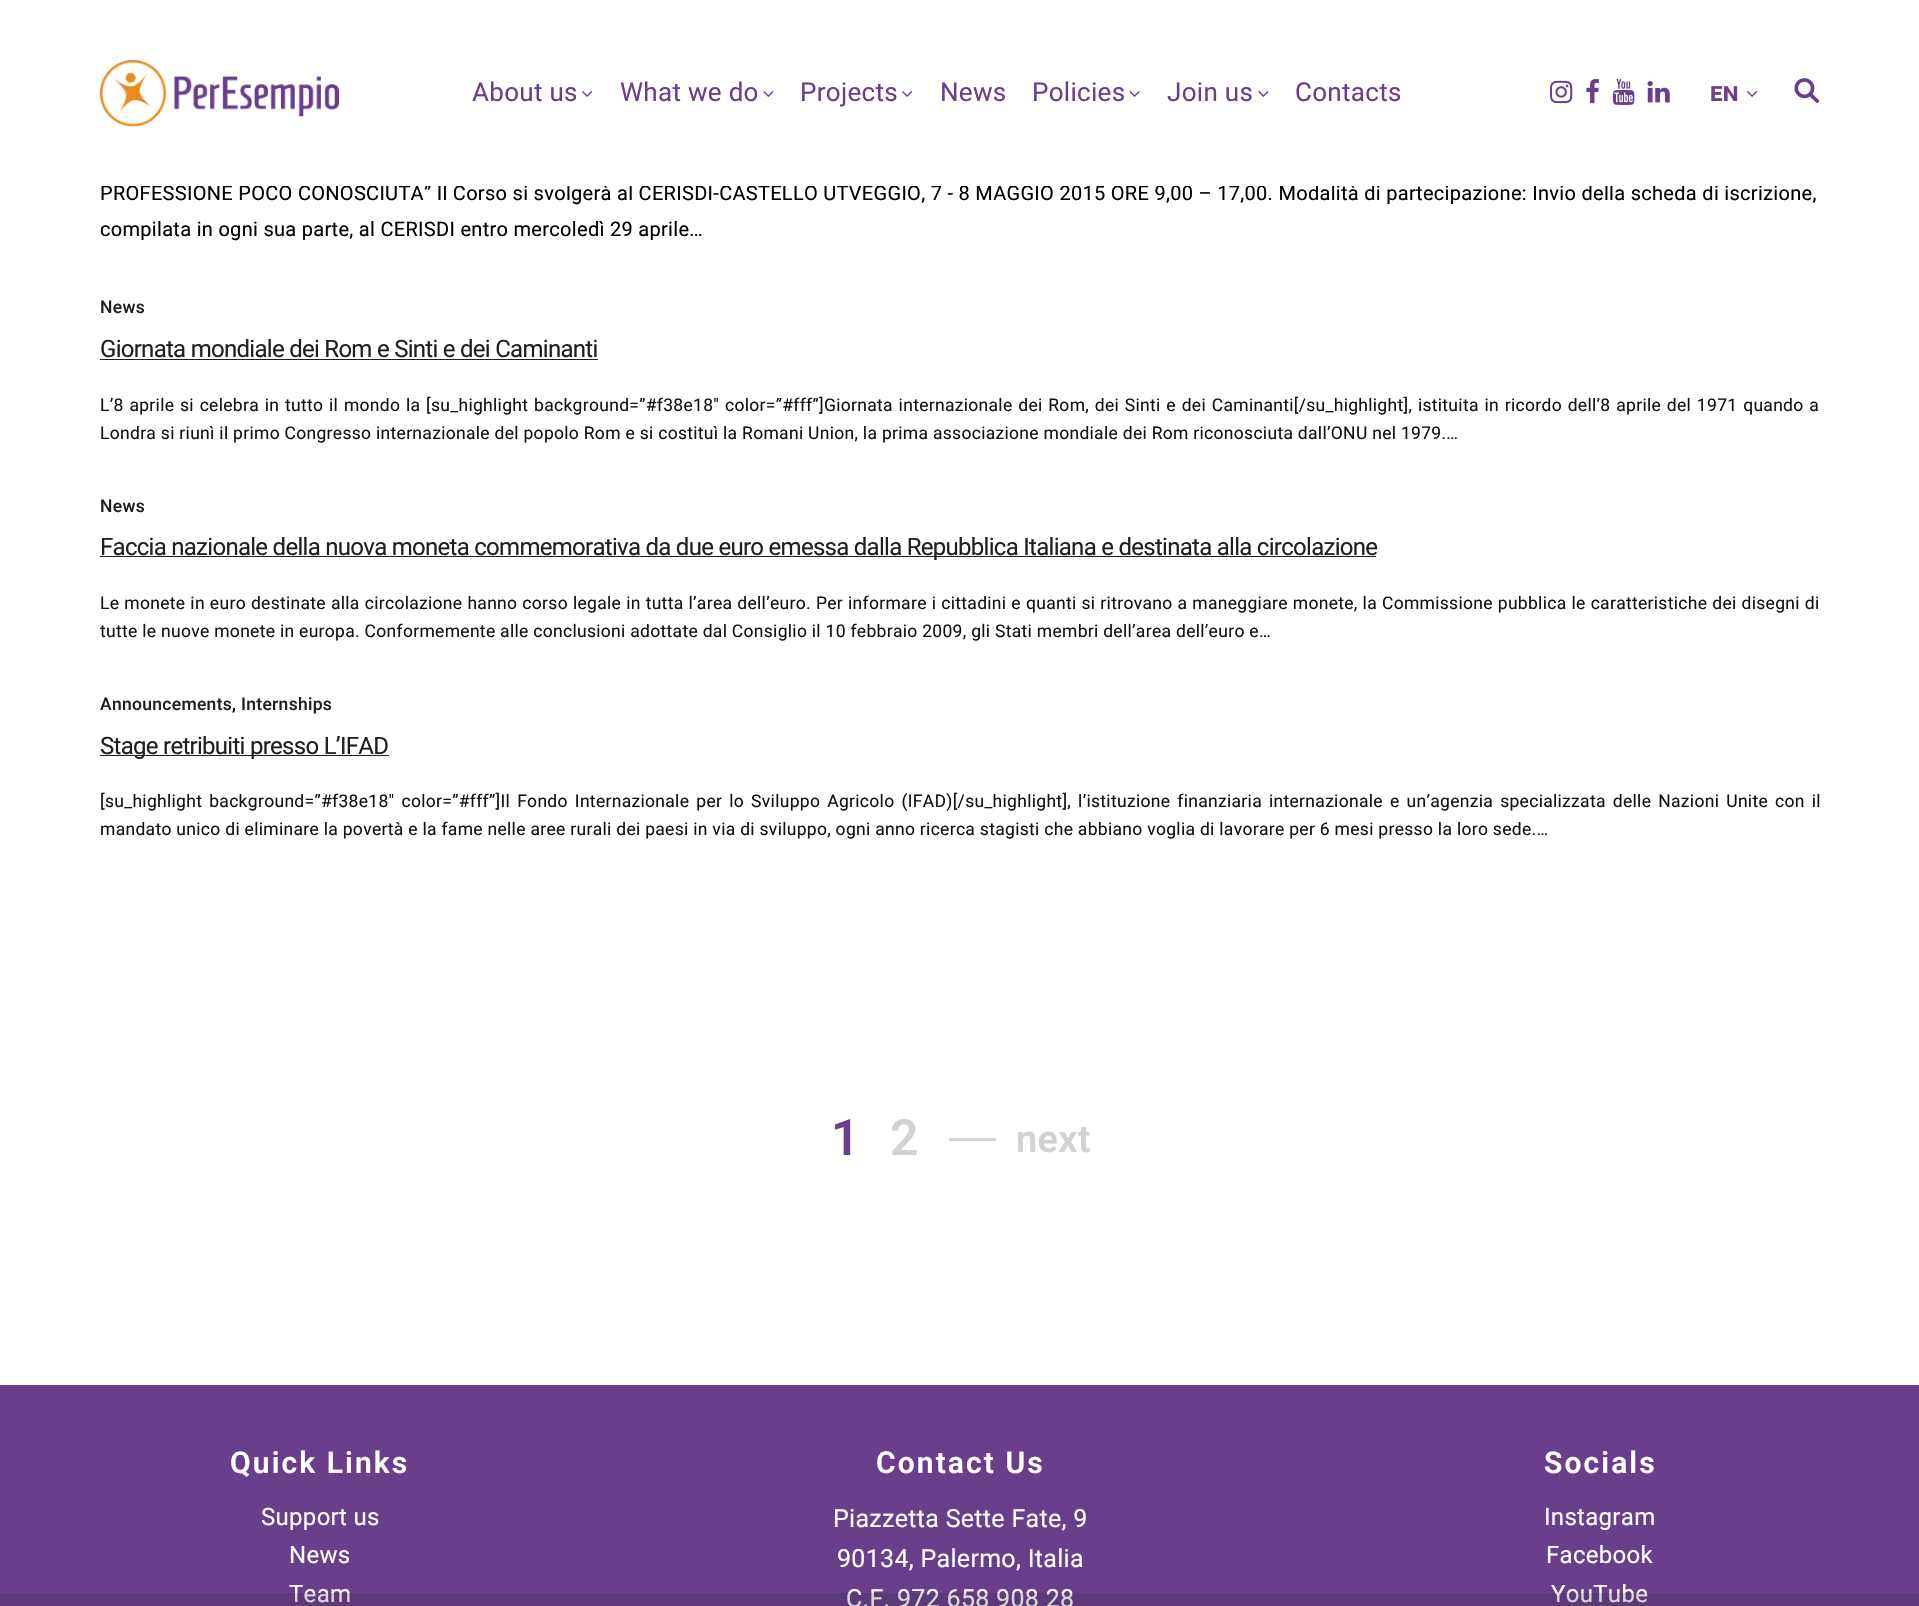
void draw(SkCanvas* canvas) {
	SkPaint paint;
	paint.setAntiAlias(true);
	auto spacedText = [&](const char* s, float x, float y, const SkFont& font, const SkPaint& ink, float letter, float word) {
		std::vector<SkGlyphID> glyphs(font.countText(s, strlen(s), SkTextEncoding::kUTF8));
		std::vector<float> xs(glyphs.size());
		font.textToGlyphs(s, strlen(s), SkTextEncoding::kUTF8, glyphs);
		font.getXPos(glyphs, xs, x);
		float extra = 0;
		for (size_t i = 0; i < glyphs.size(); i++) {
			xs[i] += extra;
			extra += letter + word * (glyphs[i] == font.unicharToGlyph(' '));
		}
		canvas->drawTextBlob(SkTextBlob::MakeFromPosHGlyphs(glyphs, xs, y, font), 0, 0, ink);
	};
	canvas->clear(0xffffffff);
	SkFont f1(fontMgr->matchFamilyStyle("Roboto", SkFontStyle::Normal()), 20);
	f1.setSubpixel(true);
	paint.setColor(0xff000000);
	spacedText("PROFESSIONE POCO CONOSCIUTA” Il Corso si svolgerà al CERISDI-CASTELLO UTVEGGIO, 7 - 8 MAGGIO 2015 ORE 9,00 – 17,00. Modalità di partecipazione: Invio della scheda di iscrizione,", 100, 200, f1, paint, 0.3, 0);
	paint.setColor(0xffffffff);
	canvas->drawRect(SkRect::MakeXYWH(101, 185, 1677, 1), paint);
	canvas->drawImageRect(SkImages::DeferredFromEncodedData(SkData::MakeFromFileName("img1.png")), SkRect::MakeXYWH(100, 60, 239, 67), SkSamplingOptions());
	SkFont f2(fontMgr->matchFamilyStyle("Roboto", SkFontStyle::Normal()), 26);
	f2.setSubpixel(true);
	paint.setColor(0xff6a3e8b);
	spacedText("About us", 472, 101, f2, paint, 0.3, 0);
	canvas->drawImageRect(SkImages::DeferredFromEncodedData(SkData::MakeFromFileName("img2.png")), SkRect::MakeXYWH(582, 91, 11, 6), SkSamplingOptions());
	spacedText("What we do", 620, 101, f2, paint, 0.3, 0);
	canvas->drawImageRect(SkImages::DeferredFromEncodedData(SkData::MakeFromFileName("img3.png")), SkRect::MakeXYWH(763, 91, 11, 6), SkSamplingOptions());
	spacedText("Projects", 800, 101, f2, paint, 0.3, 0);
	canvas->drawImageRect(SkImages::DeferredFromEncodedData(SkData::MakeFromFileName("img2.png")), SkRect::MakeXYWH(902, 91, 11, 6), SkSamplingOptions());
	spacedText("News", 940, 101, f2, paint, 0.3, 0);
	spacedText("Policies", 1032, 101, f2, paint, 0.3, 0);
	canvas->drawImageRect(SkImages::DeferredFromEncodedData(SkData::MakeFromFileName("img4.png")), SkRect::MakeXYWH(1129, 91, 11, 6), SkSamplingOptions());
	spacedText("Join us", 1167, 101, f2, paint, 0.3, 0);
	canvas->drawImageRect(SkImages::DeferredFromEncodedData(SkData::MakeFromFileName("img3.png")), SkRect::MakeXYWH(1258, 91, 11, 6), SkSamplingOptions());
	spacedText("Contacts", 1295, 101, f2, paint, 0.3, 0);
	canvas->drawImageRect(SkImages::DeferredFromEncodedData(SkData::MakeFromFileName("img5.png")), SkRect::MakeXYWH(1550, 80, 23, 24), SkSamplingOptions());
	canvas->drawImageRect(SkImages::DeferredFromEncodedData(SkData::MakeFromFileName("img6.png")), SkRect::MakeXYWH(1586, 79, 13, 25), SkSamplingOptions());
	canvas->drawImageRect(SkImages::DeferredFromEncodedData(SkData::MakeFromFileName("img7.png")), SkRect::MakeXYWH(1612, 78, 23, 27), SkSamplingOptions());
	canvas->drawImageRect(SkImages::DeferredFromEncodedData(SkData::MakeFromFileName("img8.png")), SkRect::MakeXYWH(1647, 81, 23, 22), SkSamplingOptions());
	SkFont f3(fontMgr->matchFamilyStyle("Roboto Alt", SkFontStyle(600, SkFontStyle::kNormal_Width, SkFontStyle::kUpright_Slant)), 26);
	f3.setSubpixel(true);
	spacedText("En", 1710, 101, f3, paint, 0.3, 0);
	canvas->drawImageRect(SkImages::DeferredFromEncodedData(SkData::MakeFromFileName("img2.png")), SkRect::MakeXYWH(1747, 91, 11, 6), SkSamplingOptions());
	canvas->drawImageRect(SkImages::DeferredFromEncodedData(SkData::MakeFromFileName("img9.png")), SkRect::MakeXYWH(1794, 78, 25, 25), SkSamplingOptions());
	paint.setColor(0xff000000);
	spacedText("compilata in ogni sua parte, al CERISDI entro mercoledì 29 aprile…", 100, 236, f1, paint, 0.3, 0);
	SkFont f4(fontMgr->matchFamilyStyle("Roboto", SkFontStyle(500, SkFontStyle::kNormal_Width, SkFontStyle::kUpright_Slant)), 17.5);
	f4.setSubpixel(true);
	paint.setColor(0xff1f1f1f);
	spacedText("News", 100, 313, f4, paint, 0.3, 0);
	SkFont f5(fontMgr->matchFamilyStyle("Roboto", SkFontStyle::Normal()), 24);
	f5.setSubpixel(true);
	spacedText("Giornata mondiale dei Rom e Sinti e dei Caminanti", 100, 357, f5, paint, -0.72, 0);
	canvas->drawRect(SkRect::MakeXYWH(100, 359, 498, 1), paint);
	SkFont f6(fontMgr->matchFamilyStyle("Roboto", SkFontStyle::Normal()), 17.5);
	f6.setSubpixel(true);
	paint.setColor(0xff121212);
	spacedText("L’8 aprile si celebra in tutto il mondo la [su_highlight background=”#f38e18″ color=”#fff”]Giornata internazionale dei Rom, dei Sinti e dei Caminanti[/su_highlight], istituita in ricordo dell’8 aprile del 1971 quando a", 100, 411, f6, paint, 0.3, 1.1);
	spacedText("Londra si riunì il primo Congresso internazionale del popolo Rom e si costituì la Romani Union, la prima associazione mondiale dei Rom riconosciuta dall’ONU nel 1979.…", 100, 439, f6, paint, 0.3, 0);
	paint.setColor(0xff1f1f1f);
	spacedText("News", 100, 512, f4, paint, 0.3, 0);
	canvas->drawRect(SkRect::MakeXYWH(100, 556, 1276, 1), paint);
	spacedText("Faccia nazionale della nuova moneta commemorativa da due euro emessa dalla Repubblica Italiana e destinata alla circolazione", 100, 555, f5, paint, -0.72, 0);
	paint.setColor(0xff121212);
	spacedText("Le monete in euro destinate alla circolazione hanno corso legale in tutta l’area dell’euro. Per informare i cittadini e quanti si ritrovano a maneggiare monete, la Commissione pubblica le caratteristiche dei disegni di", 100, 609, f6, paint, 0.3, 0.35);
	spacedText("tutte le nuove monete in europa. Conformemente alle conclusioni adottate dal Consiglio il 10 febbraio 2009, gli Stati membri dell’area dell’euro e…", 100, 637, f6, paint, 0.3, 0);
	paint.setColor(0xff1f1f1f);
	spacedText("Announcements", 100, 710, f4, paint, 0.3, 0);
	paint.setColor(0xff000000);
	spacedText(",", 232, 710, f4, paint, 0.3, 0);
	paint.setColor(0xff1f1f1f);
	spacedText("Internships", 241, 710, f4, paint, 0.3, 0);
	canvas->drawRect(SkRect::MakeXYWH(100, 755, 289, 1), paint);
	spacedText("Stage retribuiti presso L’IFAD", 100, 754, f5, paint, -0.72, 0);
	paint.setColor(0xff121212);
	spacedText("[su_highlight background=”#f38e18″ color=”#fff”]Il Fondo Internazionale per lo Sviluppo Agricolo (IFAD)[/su_highlight], l’istituzione finanziaria internazionale e un’agenzia specializzata delle Nazioni Unite con il", 100, 807, f6, paint, 0.3, 2.4);
	spacedText("mandato unico di eliminare la povertà e la fame nelle aree rurali dei paesi in via di sviluppo, ogni anno ricerca stagisti che abbiano voglia di lavorare per 6 mesi presso la loro sede.…", 100, 835, f6, paint, 0.3, 0);
	SkFont f7(fontMgr->matchFamilyStyle("Roboto", SkFontStyle(600, SkFontStyle::kNormal_Width, SkFontStyle::kUpright_Slant)), 50);
	f7.setSubpixel(true);
	paint.setColor(0xff6a3e8b);
	spacedText("1", 831, 1155, f7, paint, 0.3, 0);
	paint.setColor(0xffd2d2d2);
	spacedText("2", 890, 1155, f7, paint, 0.3, 0);
	canvas->drawRect(SkRect::MakeXYWH(949, 1138, 47, 3), paint);
	SkFont f8(fontMgr->matchFamilyStyle("Roboto", SkFontStyle(600, SkFontStyle::kNormal_Width, SkFontStyle::kUpright_Slant)), 38);
	f8.setSubpixel(true);
	spacedText("next", 1016, 1152, f8, paint, 0.3, 0);
	paint.setColor(0xff6a3e8b);
	canvas->drawRect(SkRect::MakeXYWH(0, 1385, 1919, 221), paint);
	SkFont f9(fontMgr->matchFamilyStyle("Roboto", SkFontStyle(600, SkFontStyle::kNormal_Width, SkFontStyle::kUpright_Slant)), 30);
	f9.setSubpixel(true);
	paint.setColor(0xffffffff);
	spacedText("Quick Links", 230, 1473, f9, paint, 2.1, 0);
	spacedText("Support us", 261, 1525, f5, paint, 0.3, 0);
	spacedText("News", 289, 1563, f5, paint, 0.3, 0);
	spacedText("Team", 289, 1602, f5, paint, 0.3, 0);
	spacedText("Contact Us", 876, 1473, f9, paint, 2.1, 0);
	SkFont f10(fontMgr->matchFamilyStyle("Roboto", SkFontStyle::Normal()), 25);
	f10.setSubpixel(true);
	spacedText("Piazzetta Sette Fate, 9", 833, 1527, f10, paint, 0.3, 0);
	spacedText("90134, Palermo, Italia", 837, 1567, f10, paint, 0.3, 0);
	spacedText("C.F. 972 658 908 28", 846, 1607, f10, paint, 0.3, 0);
	spacedText("Socials", 1544, 1473, f9, paint, 2.1, 0);
	spacedText("Instagram", 1544, 1525, f5, paint, 0.3, 0);
	spacedText("Facebook", 1546, 1563, f5, paint, 0.3, 0);
	spacedText("YouTube", 1551, 1602, f5, paint, 0.3, 0);
	paint.setColor(0x2b1f1f1f);
	canvas->drawRect(SkRect::MakeXYWH(0, 1593, 1919, 13), paint);
}
